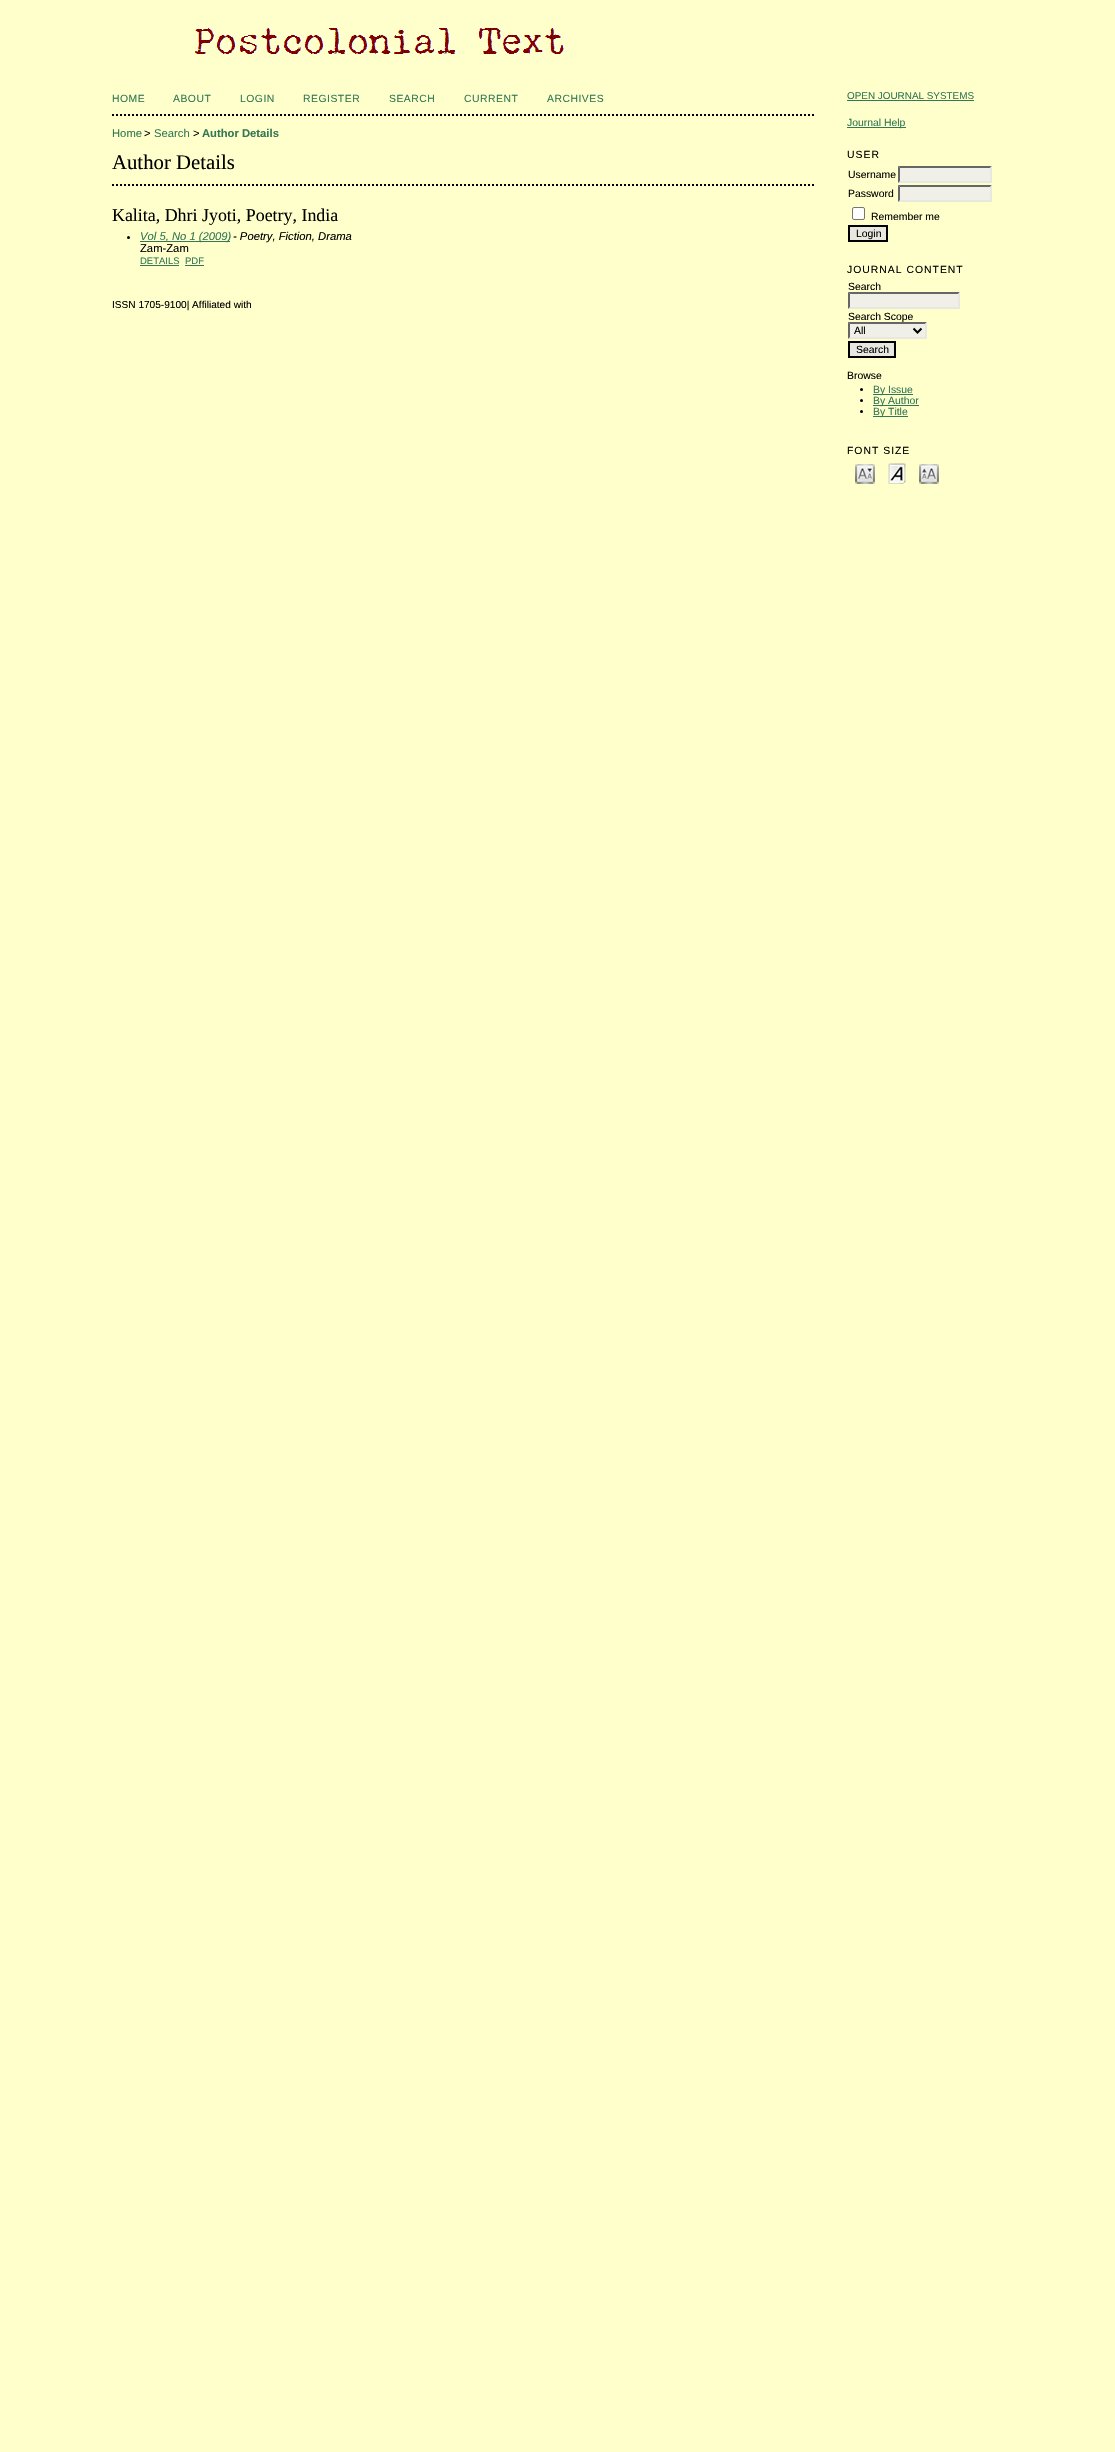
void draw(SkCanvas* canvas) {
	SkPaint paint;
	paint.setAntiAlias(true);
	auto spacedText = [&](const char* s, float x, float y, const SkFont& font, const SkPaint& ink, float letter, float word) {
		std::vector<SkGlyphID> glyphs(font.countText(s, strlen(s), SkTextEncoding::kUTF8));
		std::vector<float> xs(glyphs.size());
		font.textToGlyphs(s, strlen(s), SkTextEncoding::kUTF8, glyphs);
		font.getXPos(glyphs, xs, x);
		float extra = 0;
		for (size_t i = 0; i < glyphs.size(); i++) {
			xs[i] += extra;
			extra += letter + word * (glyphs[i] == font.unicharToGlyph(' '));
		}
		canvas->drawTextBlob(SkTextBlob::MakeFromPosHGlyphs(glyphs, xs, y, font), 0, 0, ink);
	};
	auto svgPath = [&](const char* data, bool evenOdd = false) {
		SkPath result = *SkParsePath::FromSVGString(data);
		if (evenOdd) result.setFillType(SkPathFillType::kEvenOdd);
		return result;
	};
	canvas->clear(0xffffffcc);
	canvas->drawImageRect(SkImages::DeferredFromEncodedData(SkData::MakeFromFileName("img1.png")), SkRect::MakeXYWH(195, 28, 369, 26), SkSamplingOptions());
	paint.setStroke(true);
	paint.setStrokeWidth(2);
	paint.setColor(0xff000000);
	paint.setPathEffect(SkDashPathEffect::Make({{2, 2}}, 0));
	canvas->drawPath(svgPath("M112 115H814"), paint);
	paint.setPathEffect(nullptr);
	SkFont f1(fontMgr->matchFamilyStyle("Liberation Sans", SkFontStyle::Normal()), 10.4);
	f1.setSubpixel(true);
	paint.setStroke(false);
	paint.setColor(0xff337755);
	spacedText("HOME", 112, 102, f1, paint, 0.5, 0);
	spacedText("ABOUT", 173, 102, f1, paint, 0.5, 0);
	spacedText("LOGIN", 240, 102, f1, paint, 0.5, 0);
	spacedText("REGISTER", 303, 102, f1, paint, 0.5, 0);
	spacedText("SEARCH", 389, 102, f1, paint, 0.5, 0);
	spacedText("CURRENT", 464, 102, f1, paint, 0.5, 0);
	spacedText("ARCHIVES", 547, 102, f1, paint, 0.5, 0);
	SkFont f2(fontMgr->matchFamilyStyle("Liberation Sans", SkFontStyle::Normal()), 11.25);
	f2.setSubpixel(true);
	canvas->drawString("Home", 112, 137, f2, paint);
	paint.setColor(0xff000000);
	canvas->drawString(">", 144, 137, f2, paint);
	paint.setColor(0xff337755);
	canvas->drawString("Search", 154, 137, f2, paint);
	paint.setColor(0xff000000);
	canvas->drawString(">", 193, 137, f2, paint);
	SkFont f3(fontMgr->matchFamilyStyle("Liberation Sans", SkFontStyle::Bold()), 11.25);
	f3.setSubpixel(true);
	paint.setColor(0xff337755);
	canvas->drawString("Author Details", 202, 137, f3, paint);
	SkFont f4(fontMgr->matchFamilyStyle("Liberation Serif", SkFontStyle::Normal()), 20.75);
	f4.setSubpixel(true);
	paint.setColor(0xff000000);
	canvas->drawString("Author Details", 112, 169, f4, paint);
	paint.setStroke(true);
	paint.setPathEffect(SkDashPathEffect::Make({{2, 2}}, 0));
	canvas->drawPath(svgPath("M112 185H814"), paint);
	paint.setPathEffect(nullptr);
	SkFont f5(fontMgr->matchFamilyStyle("Liberation Serif", SkFontStyle::Normal()), 17.9);
	f5.setSubpixel(true);
	paint.setStroke(false);
	canvas->drawString("Kalita, Dhri Jyoti, Poetry, India", 112, 221, f5, paint);
	canvas->drawCircle(128.5, 237.5, 1.5, paint);
	paint.setColor(0xff337755);
	canvas->drawRect(SkRect::MakeXYWH(140, 241, 90, 1), paint);
	SkFont f6(fontMgr->matchFamilyStyle("Liberation Sans", SkFontStyle::Italic()), 11.25);
	f6.setSubpixel(true);
	canvas->drawString("Vol 5, No 1 (2009)", 140, 240, f6, paint);
	paint.setColor(0xff000000);
	canvas->drawString("- Poetry, Fiction, Drama", 233, 240, f6, paint);
	canvas->drawString("Zam-Zam", 140, 252, f2, paint);
	SkFont f7(fontMgr->matchFamilyStyle("Liberation Sans", SkFontStyle::Normal()), 9.5);
	f7.setSubpixel(true);
	paint.setColor(0xff337755);
	canvas->drawString("DETAILS", 140, 264, f7, paint);
	canvas->drawRect(SkRect::MakeXYWH(140, 265, 39, 1), paint);
	canvas->drawString("PDF", 185, 264, f7, paint);
	canvas->drawRect(SkRect::MakeXYWH(185, 265, 19, 1), paint);
	SkFont f8(fontMgr->matchFamilyStyle("Liberation Sans", SkFontStyle::Normal()), 10.1);
	f8.setSubpixel(true);
	paint.setColor(0xff000000);
	canvas->drawString("ISSN 1705-9100| Affiliated with", 112, 308, f8, paint);
	SkFont f9(fontMgr->matchFamilyStyle("Liberation Sans", SkFontStyle::Normal()), 9.9);
	f9.setSubpixel(true);
	paint.setColor(0xff337755);
	canvas->drawString("OPEN JOURNAL SYSTEMS", 847, 99, f9, paint);
	canvas->drawRect(SkRect::MakeXYWH(847, 100, 127, 1), paint);
	canvas->drawRect(SkRect::MakeXYWH(847, 127, 59, 1), paint);
	canvas->drawString("Journal Help", 847, 126, f1, paint);
	paint.setColor(0xff000000);
	spacedText("USER", 847, 158, f1, paint, 1, 0);
	canvas->drawString("Username", 848, 178, f1, paint);
	paint.setColor(0xfff0f0e8);
	canvas->drawRect(SkRect::MakeXYWH(898, 166, 94, 17), paint);
	paint.setColor(0xff666666);
	canvas->drawPath(svgPath("M898 166H992L990 168H900Z"), paint);
	paint.setColor(0xffe8e8e1);
	canvas->drawPath(svgPath("M992 166V183L990 181V168Z"), paint);
	canvas->drawPath(svgPath("M992 183H898L900 181H990Z"), paint);
	paint.setColor(0xff666666);
	canvas->drawPath(svgPath("M898 183V166L900 168V181Z"), paint);
	paint.setColor(0xff000000);
	canvas->drawString("Password", 848, 197, f1, paint);
	paint.setColor(0xfff0f0e8);
	canvas->drawRect(SkRect::MakeXYWH(898, 185, 94, 17), paint);
	paint.setColor(0xff666666);
	canvas->drawPath(svgPath("M898 185H992L990 187H900Z"), paint);
	paint.setColor(0xffe8e8e1);
	canvas->drawPath(svgPath("M992 185V202L990 200V187Z"), paint);
	canvas->drawPath(svgPath("M992 202H898L900 200H990Z"), paint);
	paint.setColor(0xff666666);
	canvas->drawPath(svgPath("M898 202V185L900 187V200Z"), paint);
	paint.setColor(0xffffffff);
	canvas->drawRoundRect(SkRect::MakeXYWH(852.5, 207.5, 12, 12), 1.5, 1.5, paint);
	paint.setStroke(true);
	paint.setStrokeWidth(1);
	paint.setColor(0xff767676);
	canvas->drawRoundRect(SkRect::MakeXYWH(852.5, 207.5, 12, 12), 1.5, 1.5, paint);
	paint.setStroke(false);
	paint.setColor(0xff000000);
	canvas->drawString("Remember me", 871, 220, f1, paint);
	paint.setColor(0xffe8e8e1);
	canvas->drawRect(SkRect::MakeXYWH(849, 226, 38, 15), paint);
	paint.setStroke(true);
	paint.setStrokeWidth(2);
	paint.setColor(0xff000000);
	canvas->drawRect(SkRect::MakeXYWH(849, 226, 38, 15), paint);
	paint.setStroke(false);
	canvas->drawString("Login", 856, 237, f1, paint);
	spacedText("JOURNAL CONTENT", 847, 273, f1, paint, 1, 0);
	canvas->drawString("Search", 848, 290, f1, paint);
	paint.setColor(0xfff0f0e8);
	canvas->drawRect(SkRect::MakeXYWH(848, 292, 112, 17), paint);
	paint.setColor(0xff666666);
	canvas->drawPath(svgPath("M848 292H960L958 294H850Z"), paint);
	paint.setColor(0xffe8e8e1);
	canvas->drawPath(svgPath("M960 292V309L958 307V294Z"), paint);
	canvas->drawPath(svgPath("M960 309H848L850 307H958Z"), paint);
	paint.setColor(0xff666666);
	canvas->drawPath(svgPath("M848 309V292L850 294V307Z"), paint);
	paint.setColor(0xff000000);
	canvas->drawString("Search Scope", 848, 320, f1, paint);
	paint.setColor(0xfff0f0e8);
	canvas->drawRect(SkRect::MakeXYWH(848, 322, 79, 17), paint);
	paint.setColor(0xff666666);
	canvas->drawPath(svgPath("M848 322H927L925 324H850Z"), paint);
	paint.setColor(0xffe8e8e1);
	canvas->drawPath(svgPath("M927 322V339L925 337V324Z"), paint);
	canvas->drawPath(svgPath("M927 339H848L850 337H925Z"), paint);
	paint.setColor(0xff666666);
	canvas->drawPath(svgPath("M848 339V322L850 324V337Z"), paint);
	paint.setStroke(true);
	paint.setColor(0xff000000);
	canvas->drawPath(svgPath("M913.5 328.5L917.5 332.5L921.5 328.5"), paint);
	paint.setStroke(false);
	canvas->drawString("All", 854, 334, f1, paint);
	paint.setColor(0xffe8e8e1);
	canvas->drawRect(SkRect::MakeXYWH(849, 342, 46, 15), paint);
	paint.setStroke(true);
	paint.setColor(0xff000000);
	canvas->drawRect(SkRect::MakeXYWH(849, 342, 46, 15), paint);
	paint.setStroke(false);
	canvas->drawString("Search", 856, 353, f1, paint);
	canvas->drawString("Browse", 847, 379, f1, paint);
	canvas->drawCircle(861.5, 389.5, 1.5, paint);
	paint.setColor(0xff337755);
	canvas->drawRect(SkRect::MakeXYWH(873, 394, 40, 1), paint);
	canvas->drawString("By Issue", 873, 393, f1, paint);
	paint.setColor(0xff000000);
	canvas->drawCircle(861.5, 400.5, 1.5, paint);
	paint.setColor(0xff337755);
	canvas->drawRect(SkRect::MakeXYWH(873, 405, 46, 1), paint);
	canvas->drawString("By Author", 873, 404, f1, paint);
	paint.setColor(0xff000000);
	canvas->drawCircle(861.5, 411.5, 1.5, paint);
	paint.setColor(0xff337755);
	canvas->drawRect(SkRect::MakeXYWH(873, 416, 35, 1), paint);
	canvas->drawString("By Title", 873, 415, f1, paint);
	paint.setColor(0xff000000);
	spacedText("FONT SIZE", 847, 454, f1, paint, 1, 0);
	canvas->drawImageRect(SkImages::DeferredFromEncodedData(SkData::MakeFromFileName("img2.png")), SkRect::MakeXYWH(855, 464, 20, 20), SkSamplingOptions());
	canvas->drawImageRect(SkImages::DeferredFromEncodedData(SkData::MakeFromFileName("img3.png")), SkRect::MakeXYWH(888, 463, 18, 21), SkSamplingOptions());
	canvas->drawImageRect(SkImages::DeferredFromEncodedData(SkData::MakeFromFileName("img4.png")), SkRect::MakeXYWH(919, 464, 20, 20), SkSamplingOptions());
}
